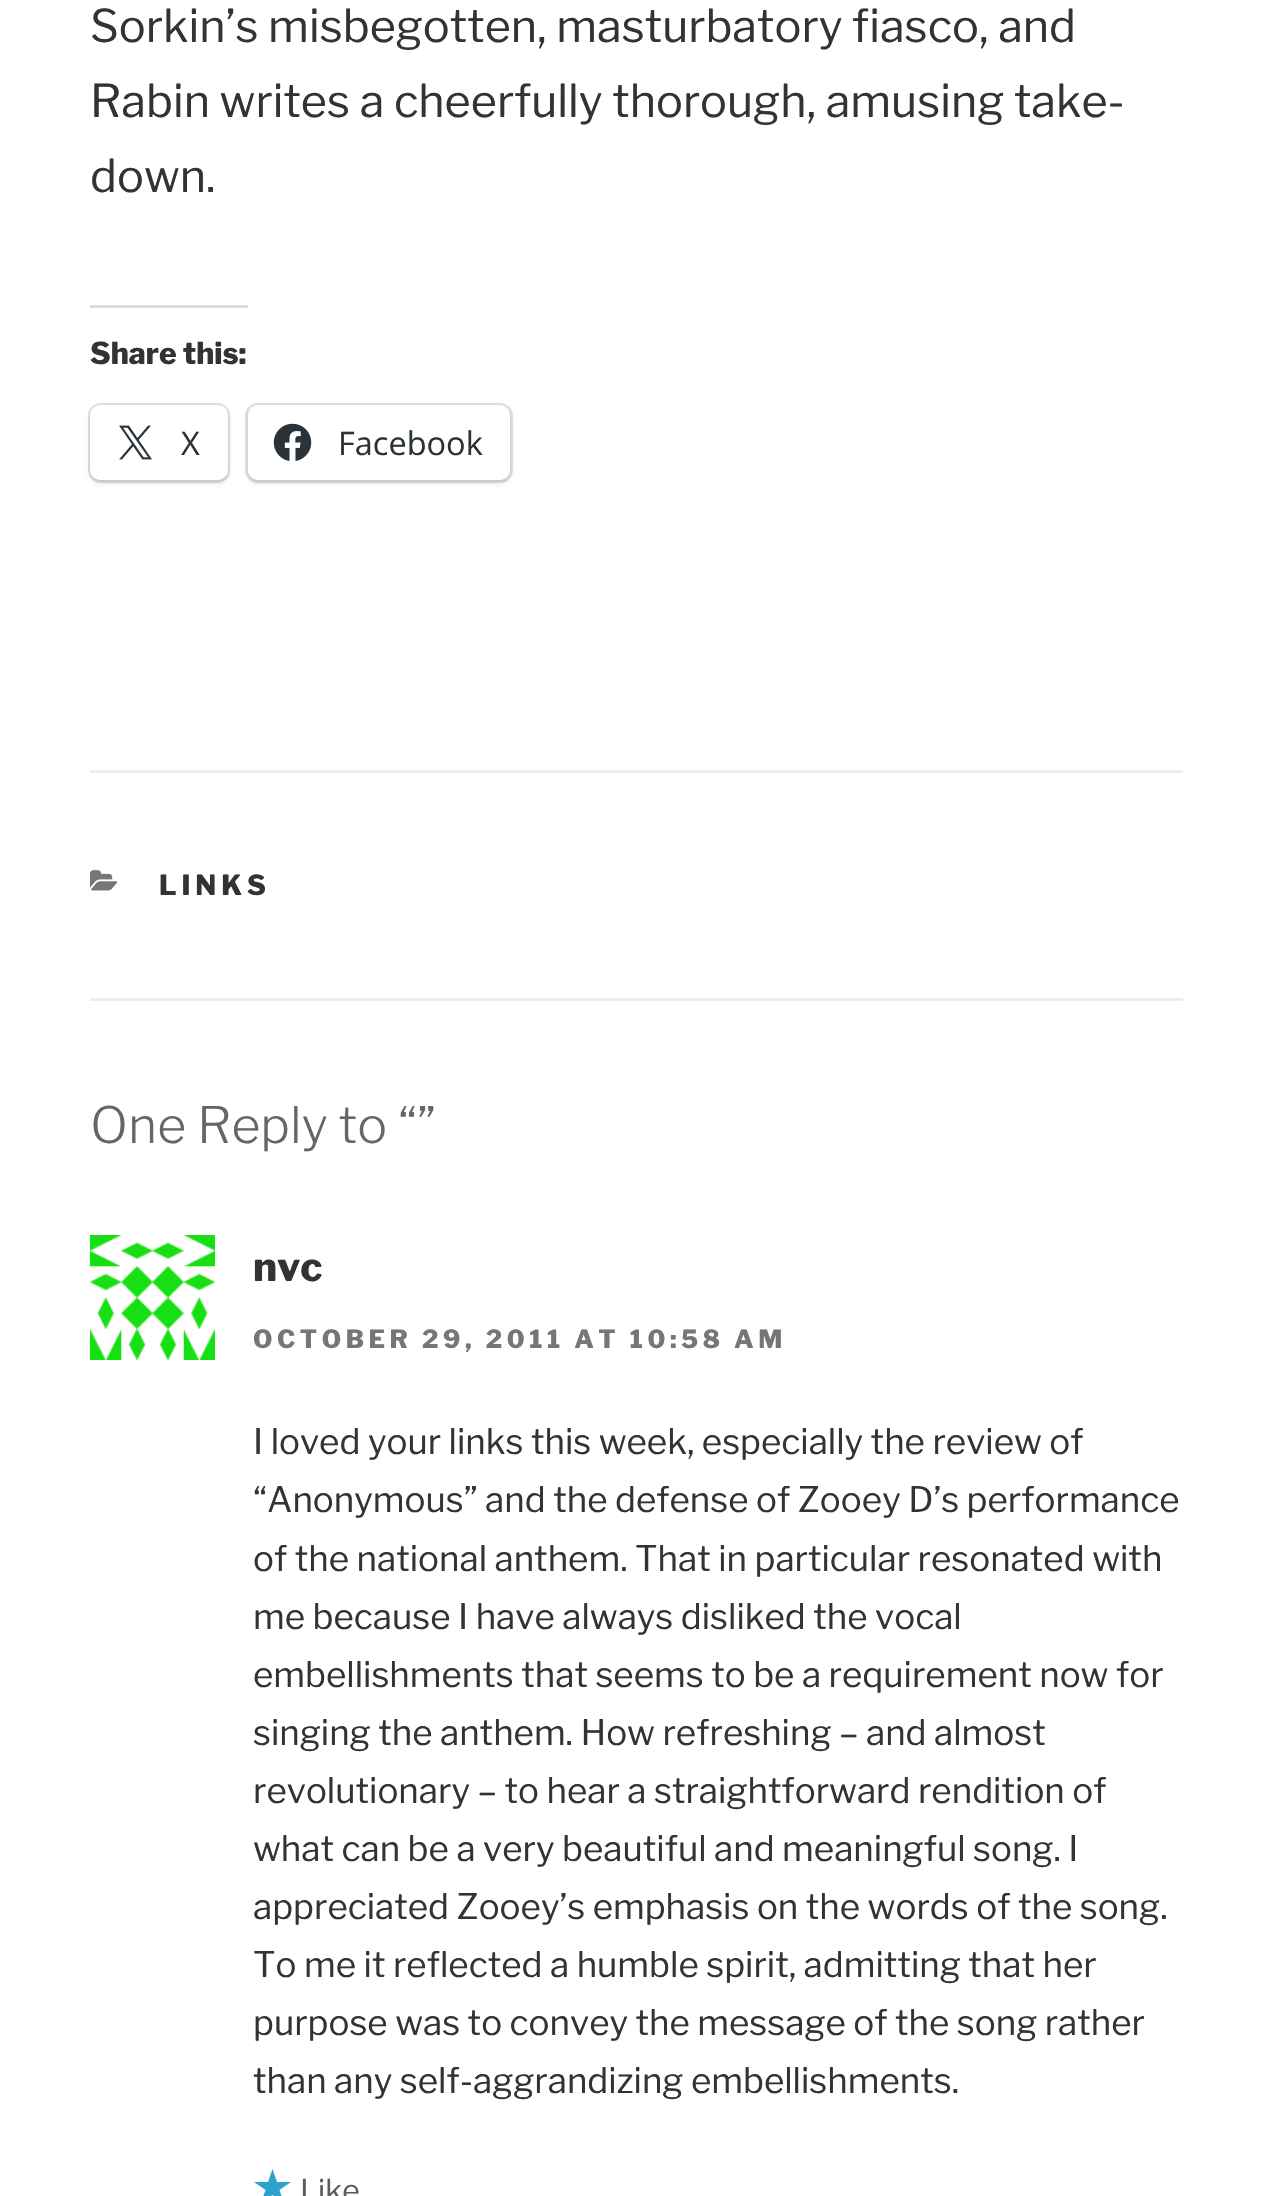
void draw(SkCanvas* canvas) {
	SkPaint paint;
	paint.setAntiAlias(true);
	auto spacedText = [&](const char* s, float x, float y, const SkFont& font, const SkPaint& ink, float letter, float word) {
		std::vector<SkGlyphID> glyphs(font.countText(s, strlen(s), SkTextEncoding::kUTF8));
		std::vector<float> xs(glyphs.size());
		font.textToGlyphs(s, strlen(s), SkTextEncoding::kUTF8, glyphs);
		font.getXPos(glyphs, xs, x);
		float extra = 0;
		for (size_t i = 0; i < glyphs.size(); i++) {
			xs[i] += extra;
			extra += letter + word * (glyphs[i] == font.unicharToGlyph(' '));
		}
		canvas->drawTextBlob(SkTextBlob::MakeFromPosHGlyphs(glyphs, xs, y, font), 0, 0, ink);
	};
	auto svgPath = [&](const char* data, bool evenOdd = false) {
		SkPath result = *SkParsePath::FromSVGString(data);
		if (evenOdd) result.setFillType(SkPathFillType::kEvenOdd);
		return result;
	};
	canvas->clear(0xffffffff);
	SkFont f1(fontMgr->matchFamilyStyle("Libre Franklin", SkFontStyle(100, SkFontStyle::kNormal_Width, SkFontStyle::kUpright_Slant)), 45);
	f1.setSubpixel(true);
	paint.setColor(0xff333333);
	canvas->drawString("Sorkin’s misbegotten, masturbatory fiasco, and", 90, 42, f1, paint);
	canvas->drawString("Rabin writes a cheerfully thorough, amusing take-", 90, 117, f1, paint);
	canvas->drawString("down.", 90, 192, f1, paint);
	paint.setColor(0xffdcdcde);
	canvas->drawRect(SkRect::MakeXYWH(90, 305, 158, 3), paint);
	SkFont f2(fontMgr->matchFamilyStyle("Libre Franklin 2", SkFontStyle(100, SkFontStyle::kNormal_Width, SkFontStyle::kUpright_Slant)), 30);
	f2.setSubpixel(true);
	paint.setColor(0xff333333);
	canvas->drawString("Share this:", 90, 364, f2, paint);
	paint.setStroke(true);
	paint.setStrokeWidth(3);
	paint.setColor(0xffe0e0e0);
	canvas->drawRoundRect(SkRect::MakeXYWH(89.5, 404.5, 139, 77), 11.5, 11.5, paint);
	paint.setStroke(false);
	paint.setColor(0x1f000000);
	paint.setMaskFilter(SkMaskFilter::MakeBlur(kNormal_SkBlurStyle, 2.5));
	canvas->drawRoundRect(SkRect::MakeXYWH(90, 408, 138, 75), 10, 10, paint);
	paint.setMaskFilter(nullptr);
	paint.setColor(0xffffffff);
	canvas->drawRoundRect(SkRect::MakeXYWH(90, 405, 138, 75), 10, 10, paint);
	canvas->drawImageRect(SkImages::DeferredFromEncodedData(SkData::MakeFromFileName("img1.png")), SkRect::MakeXYWH(119, 425, 33, 35), SkSamplingOptions());
	SkFont f3(fontMgr->matchFamilyStyle("Open Sans", SkFontStyle::Normal()), 32.5);
	f3.setSubpixel(true);
	paint.setColor(0xff2c3338);
	canvas->drawString("X", 181, 455, f3, paint);
	paint.setStroke(true);
	paint.setColor(0xffe0e0e0);
	canvas->drawRoundRect(SkRect::MakeXYWH(246.5, 404.5, 265, 77), 11.5, 11.5, paint);
	paint.setStroke(false);
	paint.setColor(0x1f000000);
	paint.setMaskFilter(SkMaskFilter::MakeBlur(kNormal_SkBlurStyle, 2.5));
	canvas->drawRoundRect(SkRect::MakeXYWH(248, 408, 262, 75), 10, 10, paint);
	paint.setMaskFilter(nullptr);
	paint.setColor(0xffffffff);
	canvas->drawRoundRect(SkRect::MakeXYWH(248, 405, 262, 75), 10, 10, paint);
	canvas->drawImageRect(SkImages::DeferredFromEncodedData(SkData::MakeFromFileName("img2.png")), SkRect::MakeXYWH(273, 423, 39, 38), SkSamplingOptions());
	paint.setColor(0xff2c3338);
	canvas->drawString("Facebook", 338, 455, f3, paint);
	paint.setColor(0xffeeeeee);
	canvas->drawRect(SkRect::MakeXYWH(90, 770, 1093, 3), paint);
	canvas->drawRect(SkRect::MakeXYWH(90, 998, 1093, 3), paint);
	canvas->drawImageRect(SkImages::DeferredFromEncodedData(SkData::MakeFromFileName("img3.png")), SkRect::MakeXYWH(90, 870, 28, 21), SkSamplingOptions());
	SkFont f4(fontMgr->matchFamilyStyle("Libre Franklin 2", SkFontStyle(100, SkFontStyle::kNormal_Width, SkFontStyle::kUpright_Slant)), 27.5);
	f4.setSubpixel(true);
	paint.setColor(0xff333333);
	spacedText("LINKS", 159, 895, f4, paint, 5, 0);
	SkFont f5(fontMgr->matchFamilyStyle("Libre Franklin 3", SkFontStyle(100, SkFontStyle::kNormal_Width, SkFontStyle::kUpright_Slant)), 50);
	f5.setSubpixel(true);
	paint.setColor(0xff666666);
	canvas->drawString("One Reply to “”", 90, 1143, f5, paint);
	canvas->drawImageRect(SkImages::DeferredFromEncodedData(SkData::MakeFromFileName("img4.png")), SkRect::MakeXYWH(90, 1235, 125, 125), SkSamplingOptions());
	SkFont f6(fontMgr->matchFamilyStyle("Libre Franklin 2", SkFontStyle(100, SkFontStyle::kNormal_Width, SkFontStyle::kUpright_Slant)), 40);
	f6.setSubpixel(true);
	paint.setColor(0xff333333);
	canvas->drawString("nvc", 253, 1281, f6, paint);
	SkFont f7(fontMgr->matchFamilyStyle("Libre Franklin 2", SkFontStyle(100, SkFontStyle::kNormal_Width, SkFontStyle::kUpright_Slant)), 25);
	f7.setSubpixel(true);
	paint.setColor(0xff767676);
	spacedText("OCTOBER 29, 2011 AT 10:58 AM", 253, 1348, f7, paint, 4.55, 0);
	SkFont f8(fontMgr->matchFamilyStyle("Libre Franklin", SkFontStyle(100, SkFontStyle::kNormal_Width, SkFontStyle::kUpright_Slant)), 35);
	f8.setSubpixel(true);
	paint.setColor(0xff333333);
	canvas->drawString("I loved your links this week, especially the review of", 253, 1454, f8, paint);
	canvas->drawString("“Anonymous” and the defense of Zooey D’s performance", 253, 1512, f8, paint);
	canvas->drawString("of the national anthem. That in particular resonated with", 253, 1571, f8, paint);
	canvas->drawString("me because I have always disliked the vocal", 253, 1629, f8, paint);
	canvas->drawString("embellishments that seems to be a requirement now for", 253, 1687, f8, paint);
	canvas->drawString("singing the anthem. How refreshing – and almost", 253, 1745, f8, paint);
	canvas->drawString("revolutionary – to hear a straightforward rendition of", 253, 1803, f8, paint);
	canvas->drawString("what can be a very beautiful and meaningful song. I", 253, 1861, f8, paint);
	canvas->drawString("appreciated Zooey’s emphasis on the words of the song.", 253, 1919, f8, paint);
	canvas->drawString("To me it reflected a humble spirit, admitting that her", 253, 1977, f8, paint);
	canvas->drawString("purpose was to convey the message of the song rather", 253, 2035, f8, paint);
	canvas->drawString("than any self-aggrandizing embellishments.", 253, 2093, f8, paint);
	paint.setColor(0xff2ea2cc);
	canvas->drawPath(svgPath("M291 2182L279.5 2190L284 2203L272.5 2195L261 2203L265.5 2190L254 2182H268L272.5 2169L277 2182Z"), paint);
	SkFont f9(fontMgr->matchFamilyStyle("Libre Franklin", SkFontStyle(100, SkFontStyle::kNormal_Width, SkFontStyle::kUpright_Slant)), 30);
	f9.setSubpixel(true);
	paint.setColor(0xff5c5c5c);
	canvas->drawString("Like", 300, 2201, f9, paint);
}
